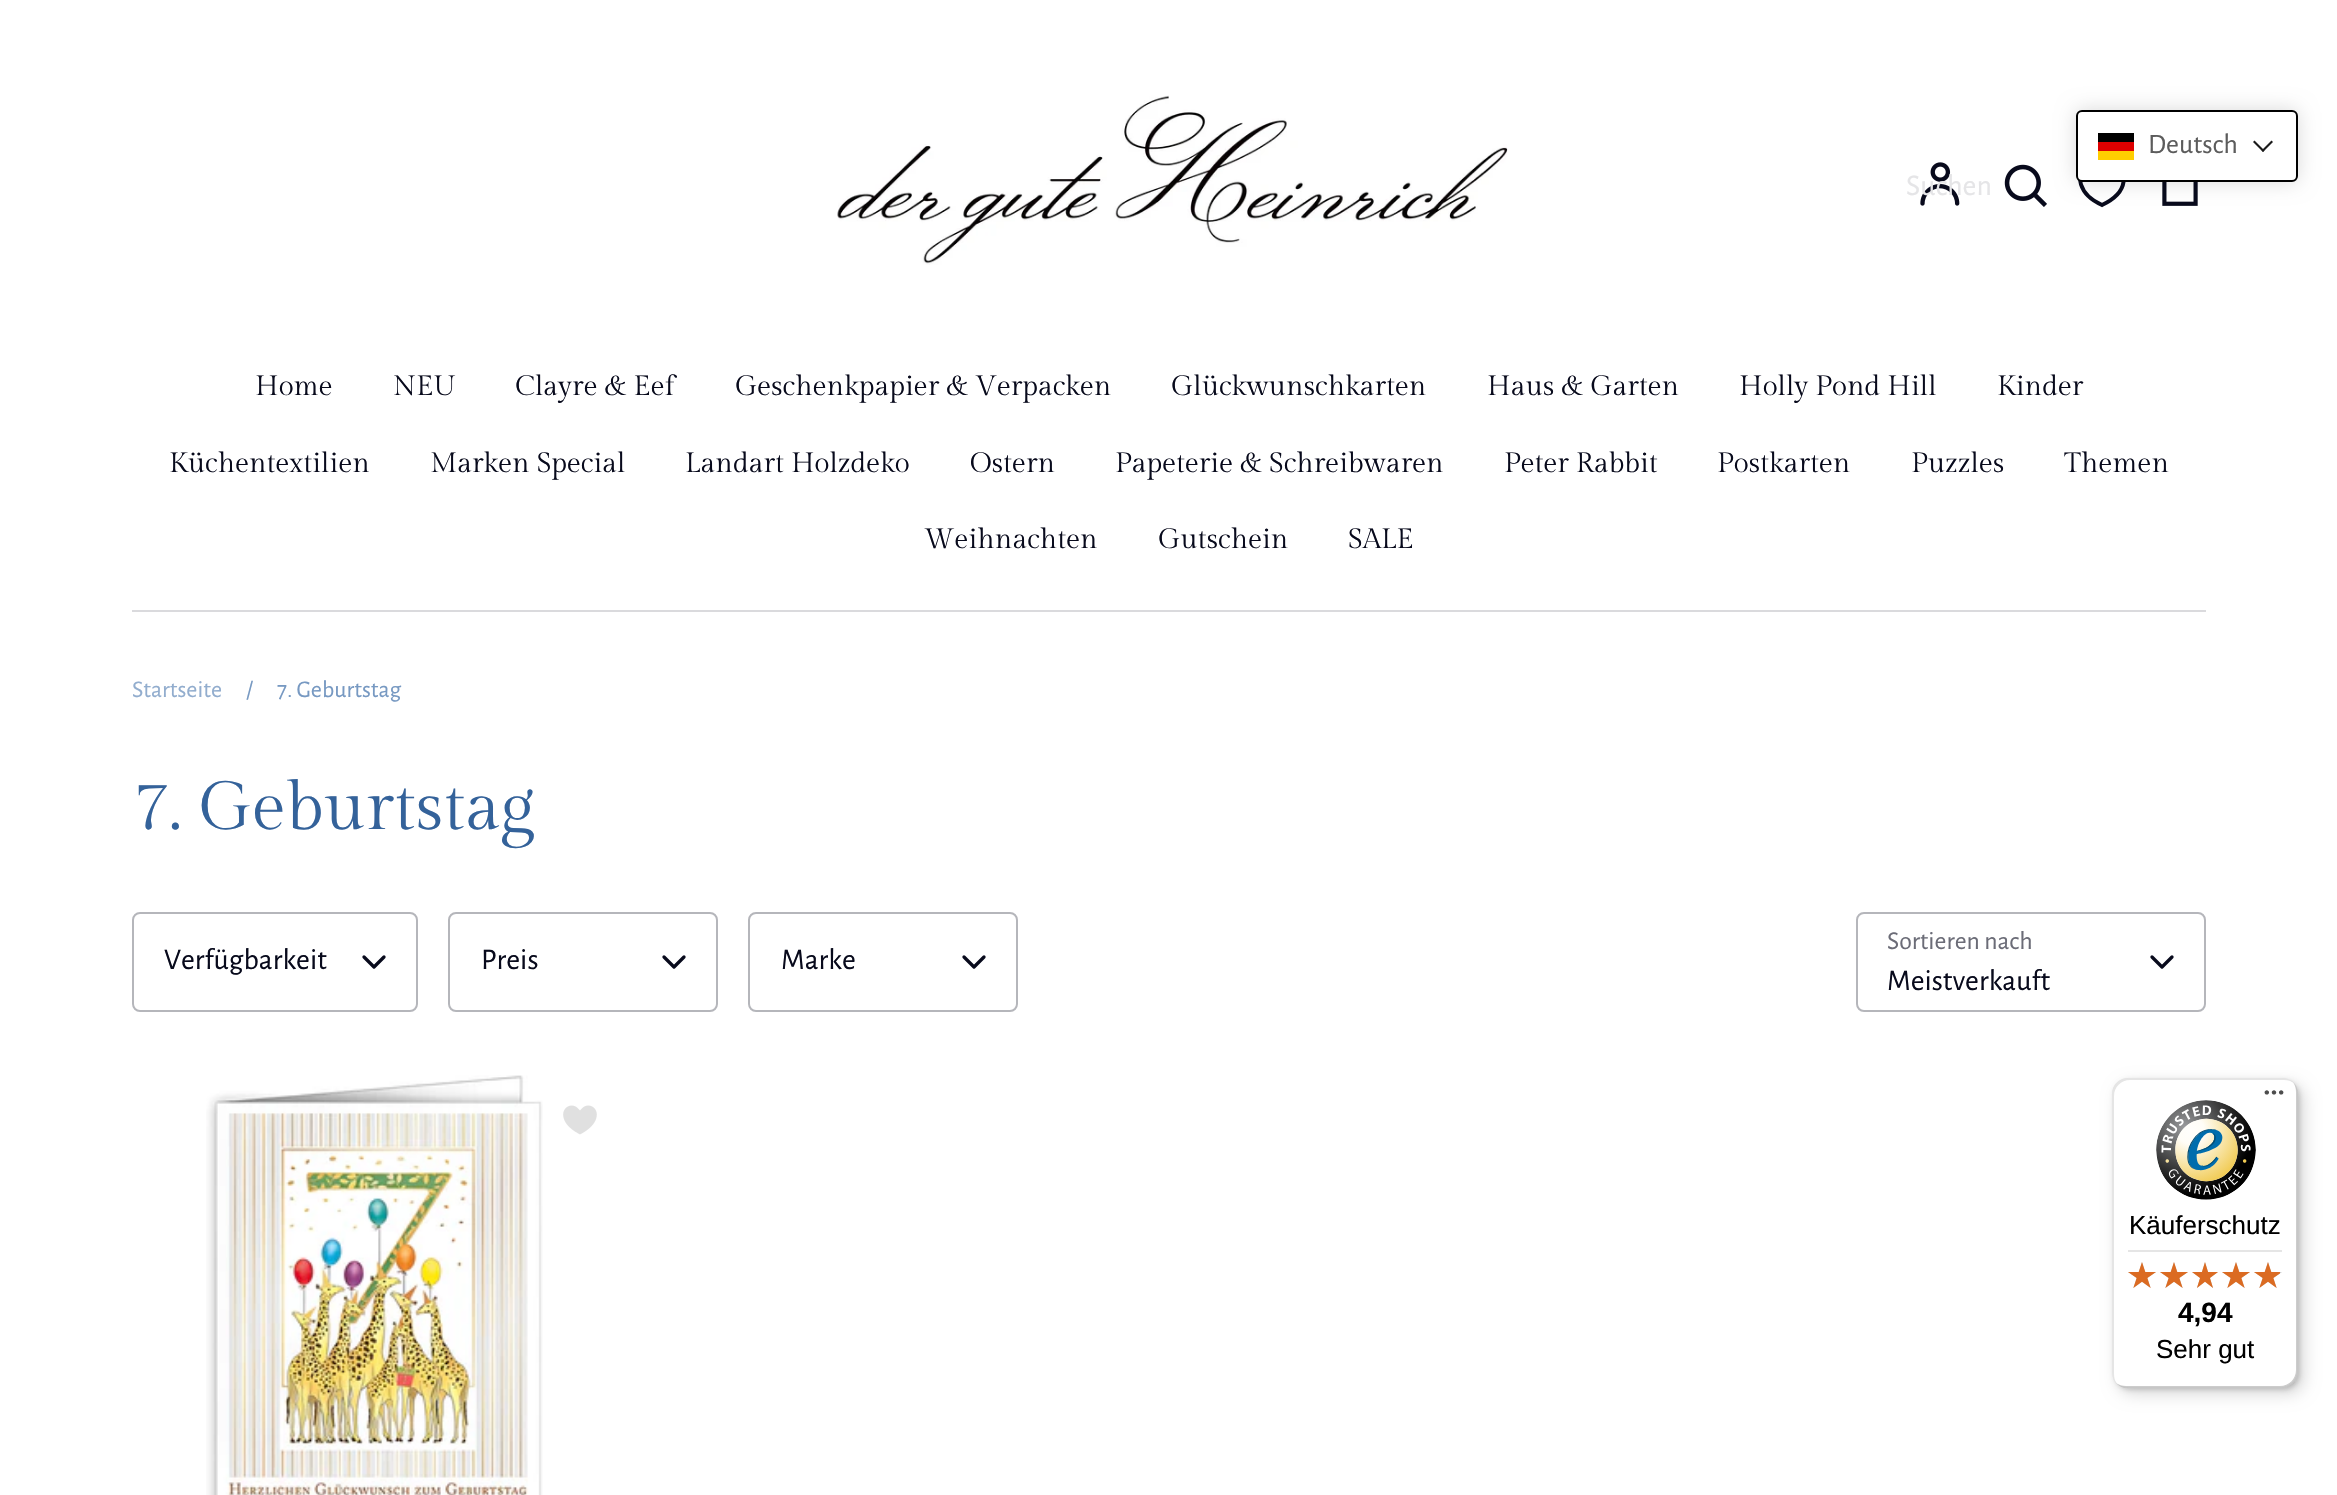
void draw(SkCanvas* canvas) {
	SkPaint paint;
	paint.setAntiAlias(true);
	auto svgPath = [&](const char* data, bool evenOdd = false) {
		SkPath result = *SkParsePath::FromSVGString(data);
		if (evenOdd) result.setFillType(SkPathFillType::kEvenOdd);
		return result;
	};
	canvas->clear(0xffffffff);
	paint.setStroke(true);
	paint.setStrokeWidth(4);
	paint.setColor(0xff080a1c);
	canvas->drawPath(svgPath("M2102 205C2093 201 2084 194 2081 184.5C2078 174.5 2085.5 163.5 2096.5 168C2098.5 169 2100 170.5 2102 172.5C2103.5 170.5 2105.5 169 2107.5 168C2117 164 2125 173 2123.5 182C2122 193 2111.5 200.5 2102 205Z"), paint);
	canvas->drawImageRect(SkImages::DeferredFromEncodedData(SkData::MakeFromFileName("img3.png")), SkRect::MakeXYWH(2004, 164, 43, 43), SkSamplingOptions());
	canvas->drawImageRect(SkImages::DeferredFromEncodedData(SkData::MakeFromFileName("img4.png")), SkRect::MakeXYWH(2162, 182, 36, 24), SkSamplingOptions());
	paint.setStroke(false);
	paint.setColor(0x26000000);
	paint.setMaskFilter(SkMaskFilter::MakeBlur(kNormal_SkBlurStyle, 10));
	canvas->drawRoundRect(SkRect::MakeXYWH(2076, 110, 222, 72), 6, 6, paint);
	paint.setMaskFilter(nullptr);
	paint.setColor(0xffffffff);
	canvas->drawRoundRect(SkRect::MakeXYWH(2077, 111, 220, 70), 5, 5, paint);
	paint.setStroke(true);
	paint.setStrokeWidth(2);
	paint.setColor(0xff000000);
	canvas->drawRoundRect(SkRect::MakeXYWH(2077, 111, 220, 70), 5, 5, paint);
	paint.setStroke(false);
	paint.setColor(0xffffce00);
	canvas->drawRect(SkRect::MakeXYWH(2098, 151, 36, 9), paint);
	paint.setColor(0xff000000);
	canvas->drawRect(SkRect::MakeXYWH(2098, 133, 36, 9), paint);
	paint.setColor(0xffdd0000);
	canvas->drawRect(SkRect::MakeXYWH(2098, 142, 36, 9), paint);
	SkFont f1(fontMgr->matchFamilyStyle("Alegreya Sans", SkFontStyle::Normal()), 28);
	f1.setSubpixel(true);
	paint.setColor(0xff5c5c5c);
	canvas->drawString("Deutsch", 2148, 153, f1, paint);
	paint.setColor(0xff1a1a1a);
	canvas->drawPath(svgPath("M2271.5 140.5L2273 142L2263 152L2261.5 150.5Z"), paint);
	canvas->drawPath(svgPath("M2254.5 140.5L2264.5 150.5L2263 152L2253 142Z"), paint);
	canvas->drawImageRect(SkImages::DeferredFromEncodedData(SkData::MakeFromFileName("img1.png")), SkRect::MakeXYWH(837, 95, 671, 170), SkSamplingOptions());
	canvas->drawImageRect(SkImages::DeferredFromEncodedData(SkData::MakeFromFileName("img2.png")), SkRect::MakeXYWH(1920, 162, 40, 44), SkSamplingOptions());
	SkFont f2(fontMgr->matchFamilyStyle("Alegreya Sans", SkFontStyle::Normal()), 30);
	f2.setSubpixel(true);
	paint.setColor(0xffe5e5e7);
	canvas->drawString("Suchen", 1906, 195, f2, paint);
	paint.setColor(0xffdadadd);
	canvas->drawRect(SkRect::MakeXYWH(132, 610, 2074, 2), paint);
	SkFont f3(fontMgr->matchFamilyStyle("Gilda Display", SkFontStyle::Normal()), 28);
	f3.setSubpixel(true);
	paint.setColor(0xff080a1c);
	canvas->drawString("Home", 255, 395, f3, paint);
	canvas->drawString("NEU", 393, 395, f3, paint);
	canvas->drawString("Clayre & Eef", 515, 395, f3, paint);
	canvas->drawString("Geschenkpapier & Verpacken", 735, 395, f3, paint);
	canvas->drawString("Glückwunschkarten", 1171, 395, f3, paint);
	canvas->drawString("Haus & Garten", 1487, 395, f3, paint);
	canvas->drawString("Holly Pond Hill", 1739, 395, f3, paint);
	canvas->drawString("Kinder", 1997, 395, f3, paint);
	canvas->drawString("Küchentextilien", 169, 472, f3, paint);
	canvas->drawString("Marken Special", 430, 472, f3, paint);
	canvas->drawString("Landart Holzdeko", 685, 472, f3, paint);
	canvas->drawString("Ostern", 970, 472, f3, paint);
	canvas->drawString("Papeterie & Schreibwaren", 1115, 472, f3, paint);
	canvas->drawString("Peter Rabbit", 1504, 472, f3, paint);
	canvas->drawString("Postkarten", 1717, 472, f3, paint);
	canvas->drawString("Puzzles", 1911, 472, f3, paint);
	canvas->drawString("Themen", 2064, 472, f3, paint);
	canvas->drawString("Weihnachten", 924, 548, f3, paint);
	canvas->drawString("Gutschein", 1158, 548, f3, paint);
	canvas->drawString("SALE", 1348, 548, f3, paint);
	SkFont f4(fontMgr->matchFamilyStyle("Alegreya Sans", SkFontStyle::Normal()), 24);
	f4.setSubpixel(true);
	paint.setColor(0xff92adce);
	canvas->drawString("Startseite", 132, 697, f4, paint);
	paint.setColor(0xff7799c2);
	canvas->drawString("/", 246, 697, f4, paint);
	canvas->drawString("7. Geburtstag", 277, 697, f4, paint);
	SkFont f5(fontMgr->matchFamilyStyle("Gilda Display", SkFontStyle::Normal()), 68);
	f5.setSubpixel(true);
	paint.setColor(0xff34629a);
	canvas->drawString("7. Geburtstag", 132, 829, f5, paint);
	paint.setStroke(true);
	paint.setColor(0xffb5b6bb);
	canvas->drawRoundRect(SkRect::MakeXYWH(133, 913, 284, 98), 7, 7, paint);
	paint.setStroke(false);
	paint.setColor(0xff080a1c);
	canvas->drawString("Verfügbarkeit", 164, 969, f2, paint);
	paint.setStroke(true);
	paint.setStrokeWidth(3.3);
	paint.setStrokeCap(SkPaint::kRound_Cap);
	paint.setStrokeJoin(SkPaint::kRound_Join);
	canvas->drawPath(svgPath("M364 957L374 967L384 957"), paint);
	paint.setStrokeWidth(2);
	paint.setStrokeCap(SkPaint::kButt_Cap);
	paint.setStrokeJoin(SkPaint::kMiter_Join);
	paint.setColor(0xffb5b6bb);
	canvas->drawRoundRect(SkRect::MakeXYWH(449, 913, 268, 98), 7, 7, paint);
	paint.setStroke(false);
	paint.setColor(0xff080a1c);
	canvas->drawString("Preis", 481, 969, f2, paint);
	paint.setStroke(true);
	paint.setStrokeWidth(3.3);
	paint.setStrokeCap(SkPaint::kRound_Cap);
	paint.setStrokeJoin(SkPaint::kRound_Join);
	canvas->drawPath(svgPath("M664 957L674 967L684 957"), paint);
	paint.setStrokeWidth(2);
	paint.setStrokeCap(SkPaint::kButt_Cap);
	paint.setStrokeJoin(SkPaint::kMiter_Join);
	paint.setColor(0xffb5b6bb);
	canvas->drawRoundRect(SkRect::MakeXYWH(749, 913, 268, 98), 7, 7, paint);
	paint.setStroke(false);
	paint.setColor(0xff080a1c);
	canvas->drawString("Marke", 781, 969, f2, paint);
	paint.setStroke(true);
	paint.setStrokeWidth(3.3);
	paint.setStrokeCap(SkPaint::kRound_Cap);
	paint.setStrokeJoin(SkPaint::kRound_Join);
	canvas->drawPath(svgPath("M964 957L974 967L984 957"), paint);
	paint.setStrokeWidth(2);
	paint.setStrokeCap(SkPaint::kButt_Cap);
	paint.setStrokeJoin(SkPaint::kMiter_Join);
	paint.setColor(0xffb5b6bb);
	canvas->drawRoundRect(SkRect::MakeXYWH(1857, 913, 348, 98), 7, 7, paint);
	SkFont f6(fontMgr->matchFamilyStyle("Alegreya Sans", SkFontStyle::Normal()), 25.75);
	f6.setSubpixel(true);
	paint.setStroke(false);
	paint.setColor(0xff6b6c77);
	canvas->drawString("Sortieren nach", 1887, 949, f6, paint);
	paint.setStroke(true);
	paint.setStrokeWidth(3.3);
	paint.setStrokeCap(SkPaint::kRound_Cap);
	paint.setStrokeJoin(SkPaint::kRound_Join);
	paint.setColor(0xff080a1c);
	canvas->drawPath(svgPath("M2152 957L2162 967L2172 957"), paint);
	paint.setStroke(false);
	canvas->drawString("Meistverkauft", 1887, 990, f2, paint);
	canvas->drawImageRect(SkImages::DeferredFromEncodedData(SkData::MakeFromFileName("img5.png")), SkRect::MakeXYWH(206, 1075, 337, 420), SkSamplingOptions());
	canvas->drawImageRect(SkImages::DeferredFromEncodedData(SkData::MakeFromFileName("img6.png")), SkRect::MakeXYWH(563, 1105, 34, 30), SkSamplingOptions());
	paint.setColor(0x26000000);
	paint.setMaskFilter(SkMaskFilter::MakeBlur(kNormal_SkBlurStyle, 8));
	canvas->drawRoundRect(SkRect::MakeXYWH(2118, 1084, 186, 310), 16, 16, paint);
	paint.setMaskFilter(nullptr);
	paint.setMaskFilter(SkMaskFilter::MakeBlur(kNormal_SkBlurStyle, 2));
	canvas->drawRoundRect(SkRect::MakeXYWH(2114, 1080, 186, 310), 16, 16, paint);
	paint.setMaskFilter(nullptr);
	paint.setColor(0xffffffff);
	canvas->drawRoundRect(SkRect::MakeXYWH(2112, 1078, 186, 310), 16, 16, paint);
	paint.setColor(0x1a000000);
	canvas->drawPath(svgPath("M2130 1080H2284C2288 1080 2291 1081 2294 1083C2291 1080 2287 1078 2282 1078H2128C2119 1078 2112 1085 2112 1094V1372C2112 1377 2114 1381 2117 1384C2115 1381 2114 1378 2114 1374V1096C2114 1087 2121 1080 2130 1080Z"), paint);
	paint.setColor(0x33000000);
	canvas->drawPath(svgPath("M2116 1383C2119 1386 2123 1388 2128 1388H2282C2291 1388 2298 1381 2298 1372V1094C2298 1089 2296 1085 2293 1082C2295 1085 2296 1088 2296 1092V1370C2296 1379 2289 1386 2280 1386H2126C2122 1386 2119 1385 2116 1383Z"), paint);
	paint.setColor(0x33323232);
	canvas->drawPath(svgPath("M2117 1383C2120 1386 2124 1388 2128 1388H2282C2291 1388 2298 1381 2298 1372V1094C2298 1090 2296 1086 2293 1083C2296 1086 2297 1089 2297 1093V1371C2297 1380 2290 1387 2281 1387H2127C2123 1387 2120 1386 2117 1383Z"), paint);
	paint.setColor(0x4dffffff);
	canvas->drawPath(svgPath("M2117 1383C2120 1386 2124 1388 2128 1388H2282C2291 1388 2298 1381 2298 1372V1094C2298 1090 2296 1086 2293 1083C2296 1086 2297 1089 2297 1093V1371C2297 1380 2290 1387 2281 1387H2127C2123 1387 2120 1386 2117 1383Z"), paint);
	canvas->drawImageRect(SkImages::DeferredFromEncodedData(SkData::MakeFromFileName("img7.png")), SkRect::MakeXYWH(2264, 1090, 20, 5), SkSamplingOptions());
	canvas->drawImageRect(SkImages::DeferredFromEncodedData(SkData::MakeFromFileName("img8.png")), SkRect::MakeXYWH(2156, 1100, 100, 100), SkSamplingOptions());
	SkFont f7(fontMgr->matchFamilyStyle("Liberation Sans", SkFontStyle::Normal()), 26);
	f7.setSubpixel(true);
	paint.setColor(0xff000000);
	canvas->drawString("Käuferschutz", 2129, 1234, f7, paint);
	paint.setColor(0xffe5e5e5);
	canvas->drawRect(SkRect::MakeXYWH(2128, 1250, 154, 2), paint);
	canvas->drawImageRect(SkImages::DeferredFromEncodedData(SkData::MakeFromFileName("img9.png")), SkRect::MakeXYWH(2128, 1262, 28, 26), SkSamplingOptions());
	canvas->drawImageRect(SkImages::DeferredFromEncodedData(SkData::MakeFromFileName("img9.png")), SkRect::MakeXYWH(2160, 1262, 28, 26), SkSamplingOptions());
	canvas->drawImageRect(SkImages::DeferredFromEncodedData(SkData::MakeFromFileName("img10.png")), SkRect::MakeXYWH(2192, 1262, 26, 26), SkSamplingOptions());
	canvas->drawImageRect(SkImages::DeferredFromEncodedData(SkData::MakeFromFileName("img9.png")), SkRect::MakeXYWH(2222, 1262, 28, 26), SkSamplingOptions());
	canvas->drawImageRect(SkImages::DeferredFromEncodedData(SkData::MakeFromFileName("img9.png")), SkRect::MakeXYWH(2254, 1262, 28, 26), SkSamplingOptions());
	canvas->drawImageRect(SkImages::DeferredFromEncodedData(SkData::MakeFromFileName("img11.png")), SkRect::MakeXYWH(2128, 1262, 28, 26), SkSamplingOptions());
	canvas->drawImageRect(SkImages::DeferredFromEncodedData(SkData::MakeFromFileName("img11.png")), SkRect::MakeXYWH(2160, 1262, 28, 26), SkSamplingOptions());
	canvas->drawImageRect(SkImages::DeferredFromEncodedData(SkData::MakeFromFileName("img12.png")), SkRect::MakeXYWH(2192, 1262, 26, 26), SkSamplingOptions());
	canvas->drawImageRect(SkImages::DeferredFromEncodedData(SkData::MakeFromFileName("img11.png")), SkRect::MakeXYWH(2222, 1262, 28, 26), SkSamplingOptions());
	canvas->drawImageRect(SkImages::DeferredFromEncodedData(SkData::MakeFromFileName("img13.png")), SkRect::MakeXYWH(2254, 1262, 26, 26), SkSamplingOptions());
	SkFont f8(fontMgr->matchFamilyStyle("Liberation Sans", SkFontStyle::Bold()), 28);
	f8.setSubpixel(true);
	paint.setColor(0xff000000);
	canvas->drawString("4,94", 2178, 1322, f8, paint);
	canvas->drawString("Sehr gut", 2156, 1358, f7, paint);
}
